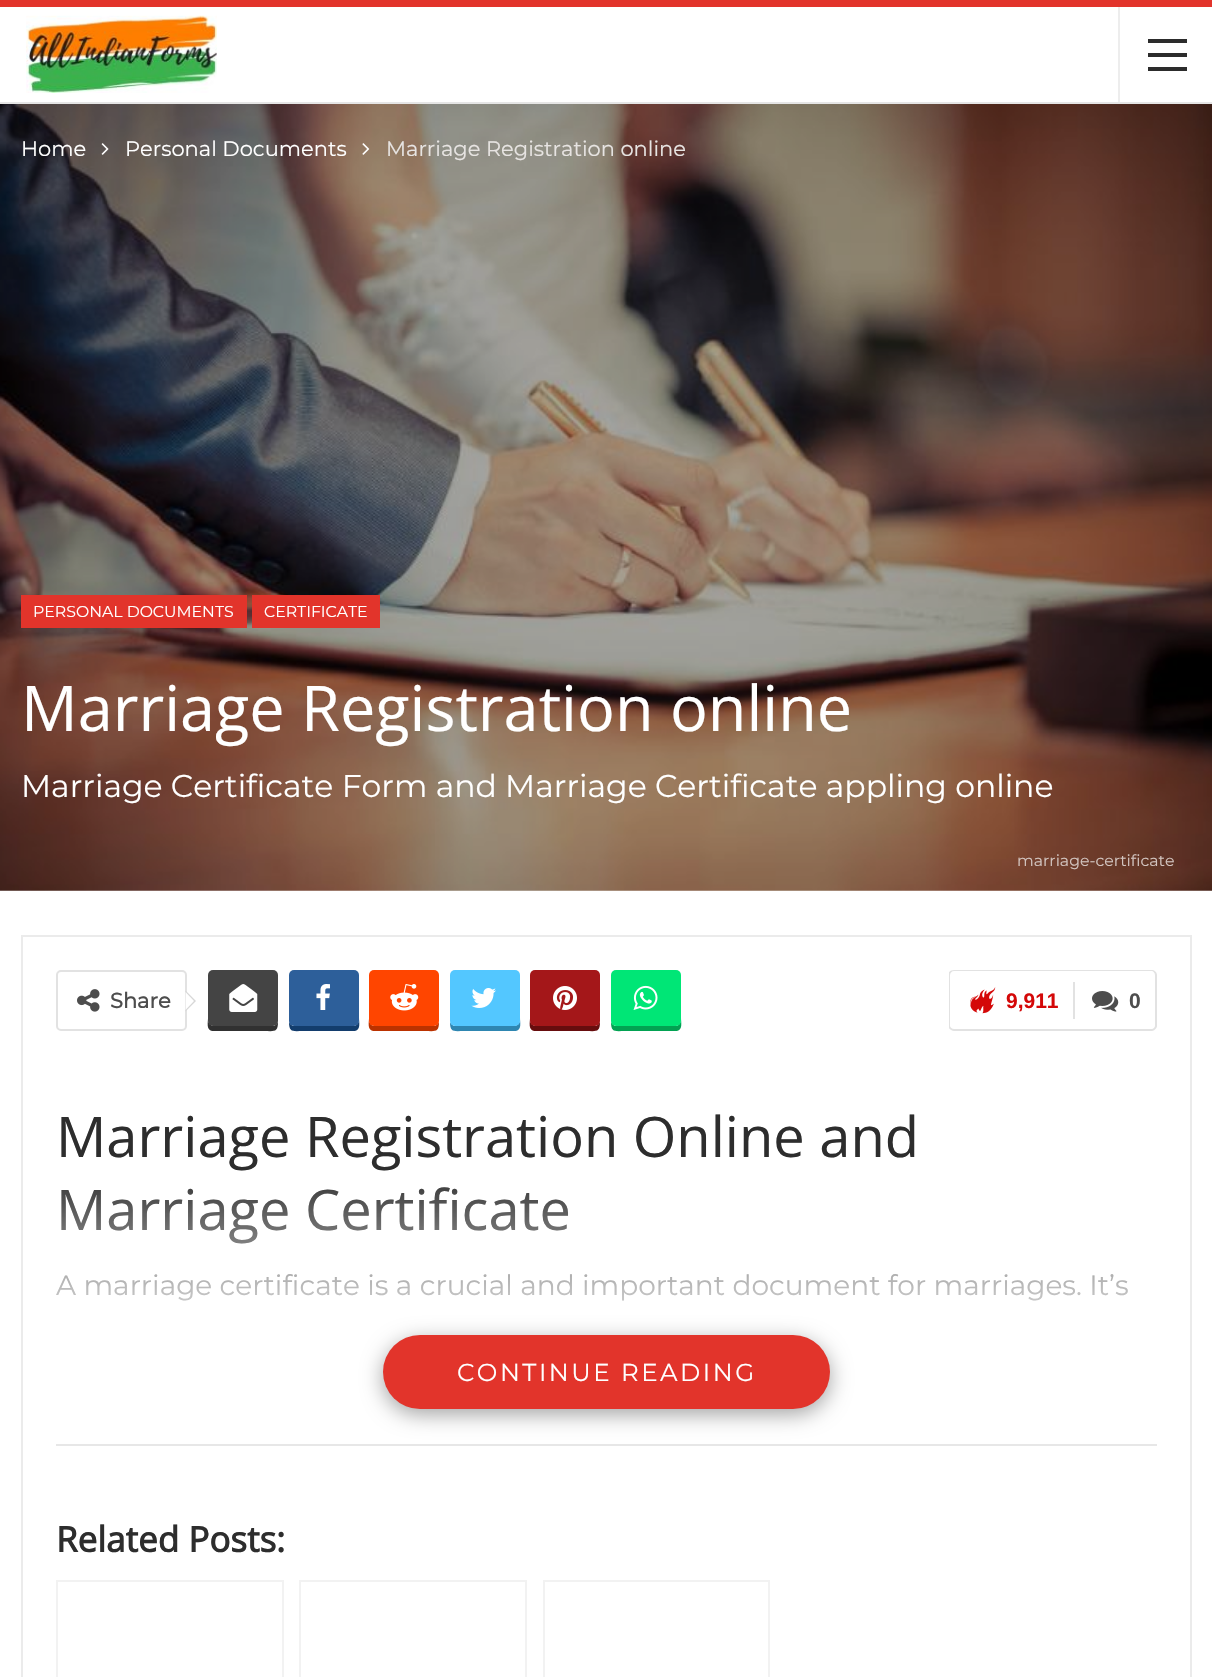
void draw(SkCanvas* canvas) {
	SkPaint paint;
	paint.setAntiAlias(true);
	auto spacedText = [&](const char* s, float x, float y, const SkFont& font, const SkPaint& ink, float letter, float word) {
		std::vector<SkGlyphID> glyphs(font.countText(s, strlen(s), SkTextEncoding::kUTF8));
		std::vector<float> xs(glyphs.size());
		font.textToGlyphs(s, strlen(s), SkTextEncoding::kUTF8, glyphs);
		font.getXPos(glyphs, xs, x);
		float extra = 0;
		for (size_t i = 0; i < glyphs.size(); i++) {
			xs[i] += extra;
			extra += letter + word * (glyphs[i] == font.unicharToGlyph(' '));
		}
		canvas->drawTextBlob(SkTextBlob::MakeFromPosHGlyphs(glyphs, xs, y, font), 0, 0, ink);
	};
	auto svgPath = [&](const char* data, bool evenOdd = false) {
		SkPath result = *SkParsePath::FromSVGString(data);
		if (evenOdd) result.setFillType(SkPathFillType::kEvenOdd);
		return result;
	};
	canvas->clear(0xffe2342b);
	paint.setColor(0xffffffff);
	canvas->drawRect(SkRect::MakeXYWH(0, 7, 1212, 95), paint);
	paint.setColor(0xffe5e5e5);
	canvas->drawRect(SkRect::MakeXYWH(0, 102, 1212, 2), paint);
	canvas->drawImageRect(SkImages::DeferredFromEncodedData(SkData::MakeFromFileName("img1.png")), SkRect::MakeXYWH(26, 15, 191, 78), SkSamplingOptions());
	paint.setColor(0xffededed);
	canvas->drawRect(SkRect::MakeXYWH(1118, 7, 2, 95), paint);
	paint.setColor(0xff2c2c2c);
	canvas->drawRect(SkRect::MakeXYWH(1148, 53, 39, 4), paint);
	canvas->drawRect(SkRect::MakeXYWH(1148, 39, 39, 4), paint);
	canvas->drawRect(SkRect::MakeXYWH(1148, 67, 39, 4), paint);
	paint.setColor(0xffffffff);
	canvas->drawRect(SkRect::MakeXYWH(0, 890, 1212, 787), paint);
	canvas->drawImageRect(SkImages::DeferredFromEncodedData(SkData::MakeFromFileName("img2.png")), SkRect::MakeXYWH(0, 104, 1212, 787), SkSamplingOptions());
	SkFont f1(fontMgr->matchFamilyStyle("Montserrat", SkFontStyle(100, SkFontStyle::kNormal_Width, SkFontStyle::kUpright_Slant)), 21);
	f1.setSubpixel(true);
	canvas->drawString("Home", 21, 156, f1, paint);
	canvas->drawImageRect(SkImages::DeferredFromEncodedData(SkData::MakeFromFileName("img3.png")), SkRect::MakeXYWH(101, 143, 8, 12), SkSamplingOptions());
	canvas->drawString("Personal Documents", 125, 156, f1, paint);
	canvas->drawImageRect(SkImages::DeferredFromEncodedData(SkData::MakeFromFileName("img4.png")), SkRect::MakeXYWH(362, 143, 8, 12), SkSamplingOptions());
	paint.setColor(0xffe7e4e2);
	canvas->drawString("Marriage Registration online", 386, 156, f1, paint);
	paint.setColor(0xffe2342b);
	canvas->drawRect(SkRect::MakeXYWH(21, 595, 226, 33), paint);
	SkFont f2(fontMgr->matchFamilyStyle("Montserrat", SkFontStyle(100, SkFontStyle::kNormal_Width, SkFontStyle::kUpright_Slant)), 15.75);
	f2.setSubpixel(true);
	paint.setColor(0xffffffff);
	canvas->drawString("PERSONAL DOCUMENTS", 33, 617, f2, paint);
	paint.setColor(0xffe2342b);
	canvas->drawRect(SkRect::MakeXYWH(252, 595, 128, 33), paint);
	paint.setColor(0xffffffff);
	canvas->drawString("CERTIFICATE", 264, 617, f2, paint);
	SkFont f3(fontMgr->matchFamilyStyle("Open Sans", SkFontStyle::Normal()), 63);
	f3.setSubpixel(true);
	canvas->drawString("Marriage Registration online", 21, 731, f3, paint);
	SkFont f4(fontMgr->matchFamilyStyle("Montserrat", SkFontStyle(100, SkFontStyle::kNormal_Width, SkFontStyle::kUpright_Slant)), 31.5);
	f4.setSubpixel(true);
	canvas->drawString("Marriage Certificate Form and Marriage Certificate appling online", 21, 797, f4, paint);
	paint.setColor(0xffd2c4bf);
	canvas->drawString("marriage-certificate", 1017, 866, f2, paint);
	paint.setStroke(true);
	paint.setStrokeWidth(2);
	paint.setColor(0xffebebeb);
	canvas->drawRect(SkRect::MakeXYWH(22, 936, 1169, 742), paint);
	paint.setColor(0xffe2e2e2);
	canvas->drawRoundRect(SkRect::MakeXYWH(57, 971, 129, 59), 4, 4, paint);
	canvas->drawImageRect(SkImages::DeferredFromEncodedData(SkData::MakeFromFileName("img5.png")), SkRect::MakeXYWH(77, 989, 23, 23), SkSamplingOptions());
	SkFont f5(fontMgr->matchFamilyStyle("Montserrat", SkFontStyle::Bold()), 21);
	f5.setSubpixel(true);
	paint.setStroke(false);
	paint.setColor(0xff4d4d4d);
	canvas->drawString("Share", 110, 1008, f5, paint);
	paint.setColor(0xffd7d7d7);
	canvas->drawPath(svgPath("M185.5 1011.5V990.5L196 1001Z"), paint);
	paint.setColor(0xffffffff);
	canvas->drawPath(svgPath("M185.5 1010V992L194 1001Z"), paint);
	paint.setColor(0xff313131);
	canvas->drawPath(svgPath("M208 978V1018C208 1022 206 1030 212 1031H263C274 1031 278 1033 278 1022C277 1024 275 1026 273 1026H214C211 1026 208 1023 208 1020Z"), paint);
	paint.setColor(0xff444444);
	canvas->drawRoundRect(SkRect::MakeXYWH(208, 970, 70, 56), 5, 5, paint);
	canvas->drawImageRect(SkImages::DeferredFromEncodedData(SkData::MakeFromFileName("img6.png")), SkRect::MakeXYWH(229, 984, 29, 28), SkSamplingOptions());
	paint.setColor(0xff133d6d);
	canvas->drawPath(svgPath("M289 1022C289 1033 293 1031 304 1031H355C361 1030 359 1022 359 1018V978V1020C359 1023 356 1026 354 1026H294C292 1026 290 1024 289 1022Z"), paint);
	paint.setColor(0xff2d5f9a);
	canvas->drawRoundRect(SkRect::MakeXYWH(289, 970, 70, 56), 5, 5, paint);
	canvas->drawImageRect(SkImages::DeferredFromEncodedData(SkData::MakeFromFileName("img7.png")), SkRect::MakeXYWH(316, 984, 14, 26), SkSamplingOptions());
	paint.setColor(0xffbb3200);
	canvas->drawPath(svgPath("M369 978V1018C369 1022 367 1030 373 1031H424C435 1031 439 1033 439 1022C438 1024 436 1026 434 1026H374C372 1026 369 1023 369 1020Z"), paint);
	paint.setColor(0xffff4500);
	canvas->drawRoundRect(SkRect::MakeXYWH(369, 970, 70, 56), 5, 5, paint);
	canvas->drawImageRect(SkImages::DeferredFromEncodedData(SkData::MakeFromFileName("img8.png")), SkRect::MakeXYWH(390, 984, 29, 27), SkSamplingOptions());
	paint.setColor(0xff2e86b1);
	canvas->drawPath(svgPath("M450 1022C450 1033 454 1031 465 1031H516C522 1030 520 1022 520 1018V978V1020C520 1023 517 1026 514 1026H455C453 1026 451 1024 450 1022Z"), paint);
	paint.setColor(0xff53c7ff);
	canvas->drawRoundRect(SkRect::MakeXYWH(450, 970, 70, 56), 5, 5, paint);
	canvas->drawImageRect(SkImages::DeferredFromEncodedData(SkData::MakeFromFileName("img9.png")), SkRect::MakeXYWH(471, 988, 25, 20), SkSamplingOptions());
	paint.setColor(0xff670d0e);
	canvas->drawPath(svgPath("M530 978V1018C530 1022 528 1030 534 1031H585C596 1031 600 1033 600 1022C599 1024 597 1026 595 1026H536C533 1026 530 1023 530 1020Z"), paint);
	paint.setColor(0xffa41719);
	canvas->drawRoundRect(SkRect::MakeXYWH(530, 970, 70, 56), 5, 5, paint);
	canvas->drawImageRect(SkImages::DeferredFromEncodedData(SkData::MakeFromFileName("img10.png")), SkRect::MakeXYWH(553, 986, 24, 24), SkSamplingOptions());
	paint.setColor(0xff02a252);
	canvas->drawPath(svgPath("M611 1022C611 1033 615 1031 626 1031H677C683 1030 681 1022 681 1018V978V1020C681 1023 678 1026 676 1026H616C614 1026 612 1024 611 1022Z"), paint);
	paint.setColor(0xff00e676);
	canvas->drawRoundRect(SkRect::MakeXYWH(611, 970, 70, 56), 5, 5, paint);
	canvas->drawImageRect(SkImages::DeferredFromEncodedData(SkData::MakeFromFileName("img11.png")), SkRect::MakeXYWH(633, 985, 25, 25), SkSamplingOptions());
	canvas->save();
	canvas->clipRect(SkRect::MakeXYWH(949, 970, 208, 61));
	paint.setColor(0xffe2e2e2);
	canvas->drawPath(svgPath("M954 970H1073V1031H954C951 1031 948 1028 948 1026V975C948 972 951 970 954 970ZM954 971H1073V1029H954C952 1029 950 1027 950 1026V975C950 973 952 971 954 971Z", true), paint);
	canvas->restore();
	canvas->drawImageRect(SkImages::DeferredFromEncodedData(SkData::MakeFromFileName("img12.png")), SkRect::MakeXYWH(970, 987, 26, 27), SkSamplingOptions());
	SkFont f6(fontMgr->matchFamilyStyle("Liberation Sans", SkFontStyle::Bold()), 21);
	f6.setSubpixel(true);
	paint.setColor(0xffd40808);
	canvas->drawString("9,911", 1006, 1008, f6, paint);
	paint.setColor(0xffe2e2e2);
	canvas->drawPath(svgPath("M1073 970H1152C1154 970 1157 972 1157 975V1026C1157 1028 1154 1031 1152 1031H1073ZM1073 971H1152C1153 971 1155 973 1155 975V1026C1155 1027 1153 1029 1152 1029H1073Z", true), paint);
	canvas->drawRect(SkRect::MakeXYWH(1073, 982, 2, 37), paint);
	canvas->drawImageRect(SkImages::DeferredFromEncodedData(SkData::MakeFromFileName("img13.png")), SkRect::MakeXYWH(1092, 991, 27, 21), SkSamplingOptions());
	paint.setColor(0xff4d4d4d);
	canvas->drawString("0", 1129, 1008, f6, paint);
	SkFont f7(fontMgr->matchFamilyStyle("Open Sans", SkFontStyle::Normal()), 56);
	f7.setSubpixel(true);
	paint.setColor(0xff2d2d2d);
	canvas->drawString("Marriage Registration Online and", 56, 1157, f7, paint);
	canvas->drawString("Marriage Certificate", 56, 1230, f7, paint);
	SkFont f8(fontMgr->matchFamilyStyle("Montserrat", SkFontStyle(100, SkFontStyle::kNormal_Width, SkFontStyle::kUpright_Slant)), 28);
	f8.setSubpixel(true);
	paint.setColor(0xff4d4d4d);
	canvas->drawString("A marriage certificate is a crucial and important document for marriages. It’s", 56, 1295, f8, paint);
	{
		const SkColor colors[] = {0x00ffffff, 0xffffffff};
		const float stops[] = {0.35, 1};
		const SkPoint ends[] = {{606, 1064}, {606, 1362}};
		paint.setShader(SkGradientShader::MakeLinear(ends, colors, stops, 2, SkTileMode::kClamp));
		paint.setAlpha(255);
	}
	canvas->drawRect(SkRect::MakeXYWH(56, 1187, 1072, 114), paint);
	paint.setShader(nullptr);
	paint.setColor(0xffe7e7e7);
	canvas->drawRect(SkRect::MakeXYWH(56, 1444, 1101, 2), paint);
	paint.setColor(0x5e000000);
	paint.setMaskFilter(SkMaskFilter::MakeBlur(kNormal_SkBlurStyle, 10.5));
	canvas->drawRoundRect(SkRect::MakeXYWH(383, 1341, 447, 73), 36.5, 36.5, paint);
	paint.setMaskFilter(nullptr);
	paint.setColor(0xffe2342b);
	canvas->drawRoundRect(SkRect::MakeXYWH(383, 1335, 447, 74), 37, 37, paint);
	SkFont f9(fontMgr->matchFamilyStyle("Montserrat", SkFontStyle(100, SkFontStyle::kNormal_Width, SkFontStyle::kUpright_Slant)), 24.5);
	f9.setSubpixel(true);
	paint.setColor(0xffffffff);
	spacedText("CONTINUE READING", 457, 1381, f9, paint, 2.5, 0);
	SkFont f10(fontMgr->matchFamilyStyle("Open Sans", SkFontStyle::Bold()), 35);
	f10.setSubpixel(true);
	paint.setColor(0xff2d2d2d);
	canvas->drawString("Related Posts:", 56, 1552, f10, paint);
	paint.setStroke(true);
	paint.setColor(0xfff2f2f2);
	canvas->drawRect(SkRect::MakeXYWH(57, 1581, 226, 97), paint);
	canvas->drawRect(SkRect::MakeXYWH(300, 1581, 226, 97), paint);
	canvas->drawRect(SkRect::MakeXYWH(544, 1581, 225, 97), paint);
}
